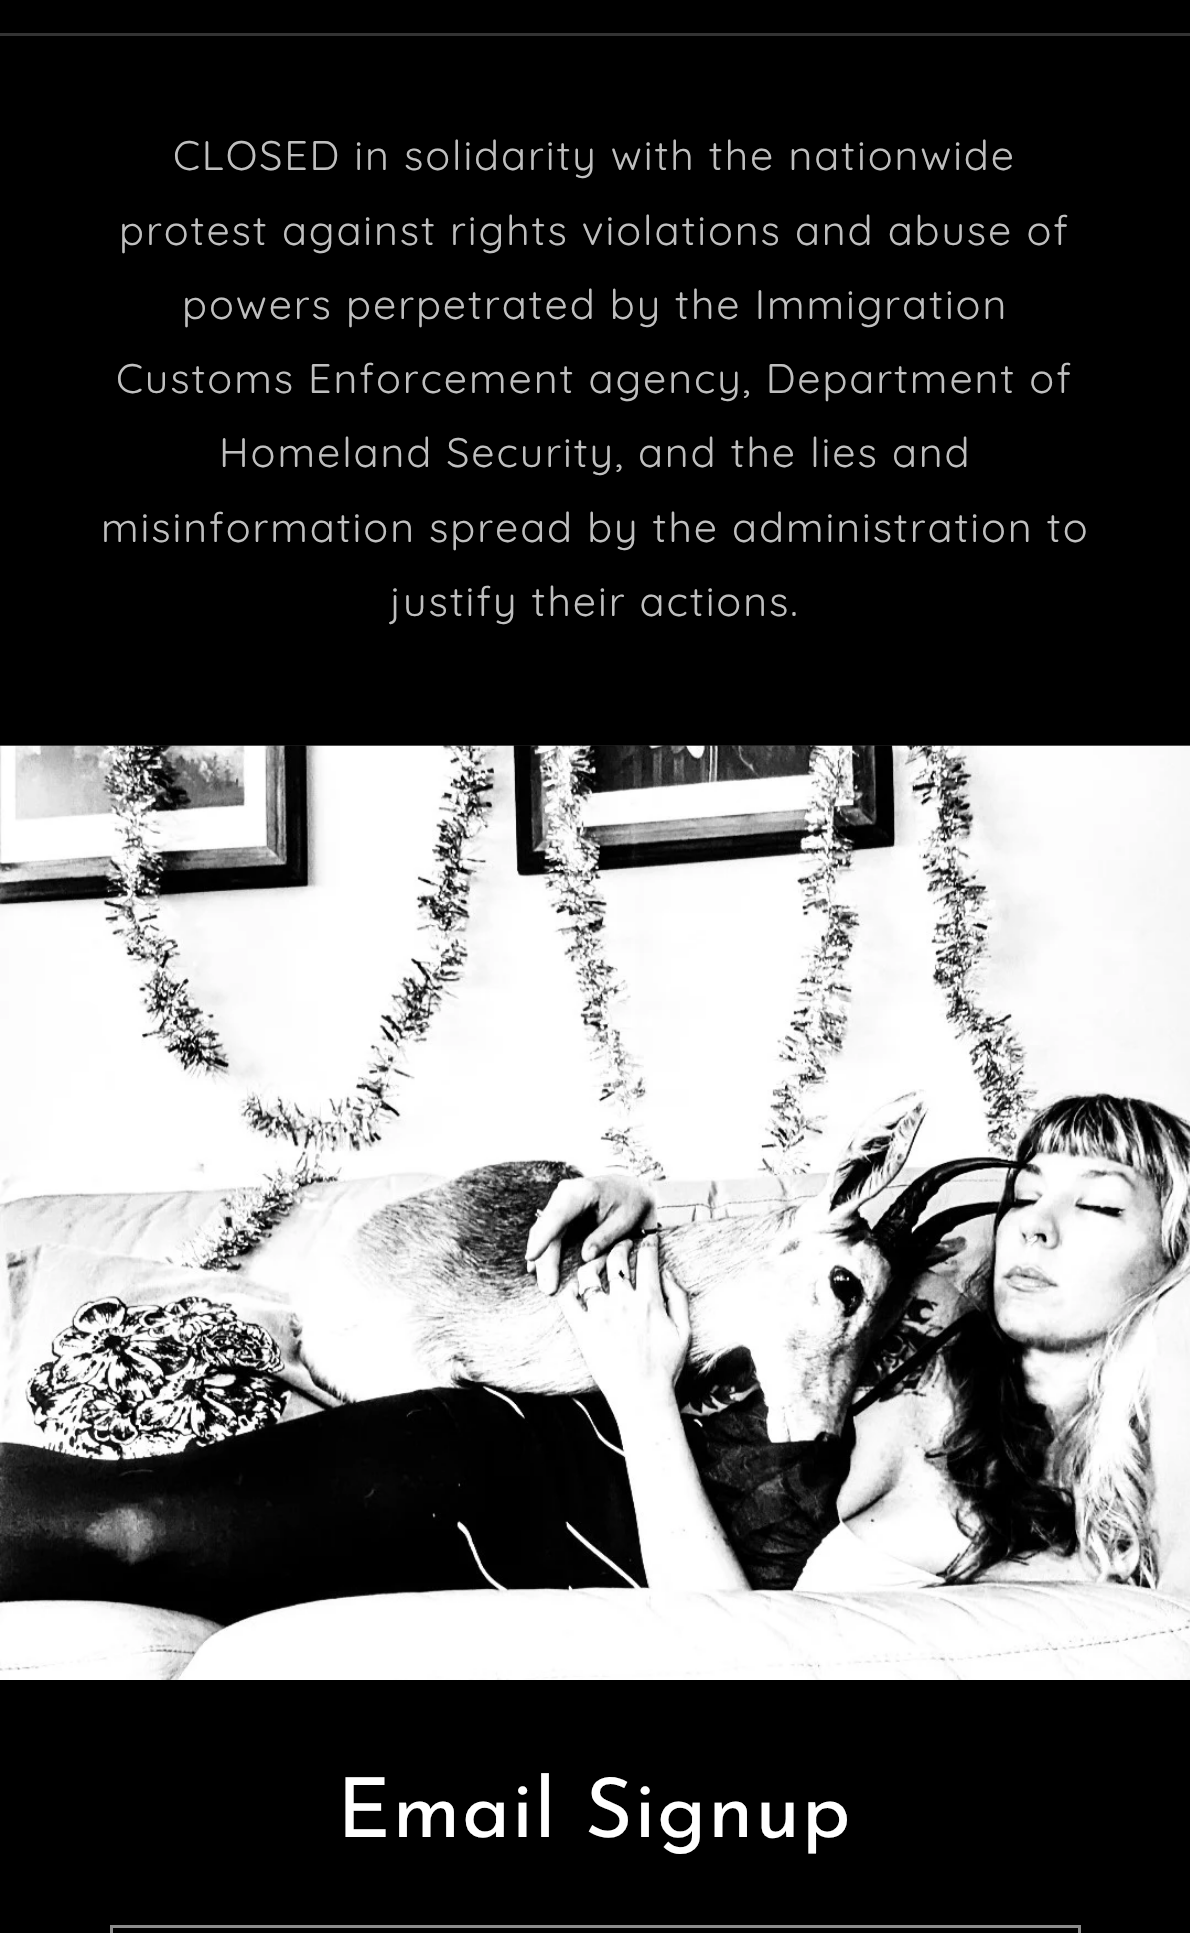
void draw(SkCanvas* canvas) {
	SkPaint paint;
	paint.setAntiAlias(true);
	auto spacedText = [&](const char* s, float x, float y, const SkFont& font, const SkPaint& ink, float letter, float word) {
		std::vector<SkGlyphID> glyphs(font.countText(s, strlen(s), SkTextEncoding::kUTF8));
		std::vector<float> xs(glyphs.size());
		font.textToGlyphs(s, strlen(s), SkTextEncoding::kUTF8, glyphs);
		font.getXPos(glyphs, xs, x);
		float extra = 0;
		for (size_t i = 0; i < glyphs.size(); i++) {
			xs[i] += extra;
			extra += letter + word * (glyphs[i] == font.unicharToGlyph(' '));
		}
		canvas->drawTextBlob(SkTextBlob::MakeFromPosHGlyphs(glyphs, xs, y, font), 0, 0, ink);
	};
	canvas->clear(0xff000000);
	paint.setColor(0xff333333);
	canvas->drawRect(SkRect::MakeXYWH(0, 33, 1190, 3), paint);
	SkFont f1(fontMgr->matchFamilyStyle("Quicksand", SkFontStyle::Normal()), 41.25);
	f1.setSubpixel(true);
	paint.setColor(0xffbfbfbf);
	spacedText("CLOSED in solidarity with the nationwide", 173, 170, f1, paint, 1.9, 0);
	spacedText("protest against rights violations and abuse of", 119, 245, f1, paint, 1.9, 0);
	spacedText("powers perpetrated by the Immigration", 182, 319, f1, paint, 1.9, 0);
	spacedText("Customs Enforcement agency, Department of", 116, 393, f1, paint, 1.9, 0);
	spacedText("Homeland Security, and the lies and", 219, 467, f1, paint, 1.9, 0);
	spacedText("misinformation spread by the administration to", 101, 542, f1, paint, 1.9, 0);
	spacedText("justify their actions.", 390, 616, f1, paint, 1.9, 0);
	paint.setColor(0xff1a1a1a);
	canvas->drawRect(SkRect::MakeXYWH(0, 745, 1190, 1), paint);
	canvas->drawImageRect(SkImages::DeferredFromEncodedData(SkData::MakeFromFileName("img1.png")), SkRect::MakeXYWH(0, 745, 1190, 935), SkSamplingOptions());
	SkFont f2(fontMgr->matchFamilyStyle("Josefin Sans", SkFontStyle::Normal()), 82.5);
	f2.setSubpixel(true);
	paint.setColor(0xffffffff);
	spacedText("Email Signup", 337, 1837, f2, paint, 1.6, 0);
	paint.setStroke(true);
	paint.setStrokeWidth(3);
	paint.setColor(0xff8c8c8c);
	canvas->drawRect(SkRect::MakeXYWH(111.5, 1926.5, 968, 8), paint);
}
